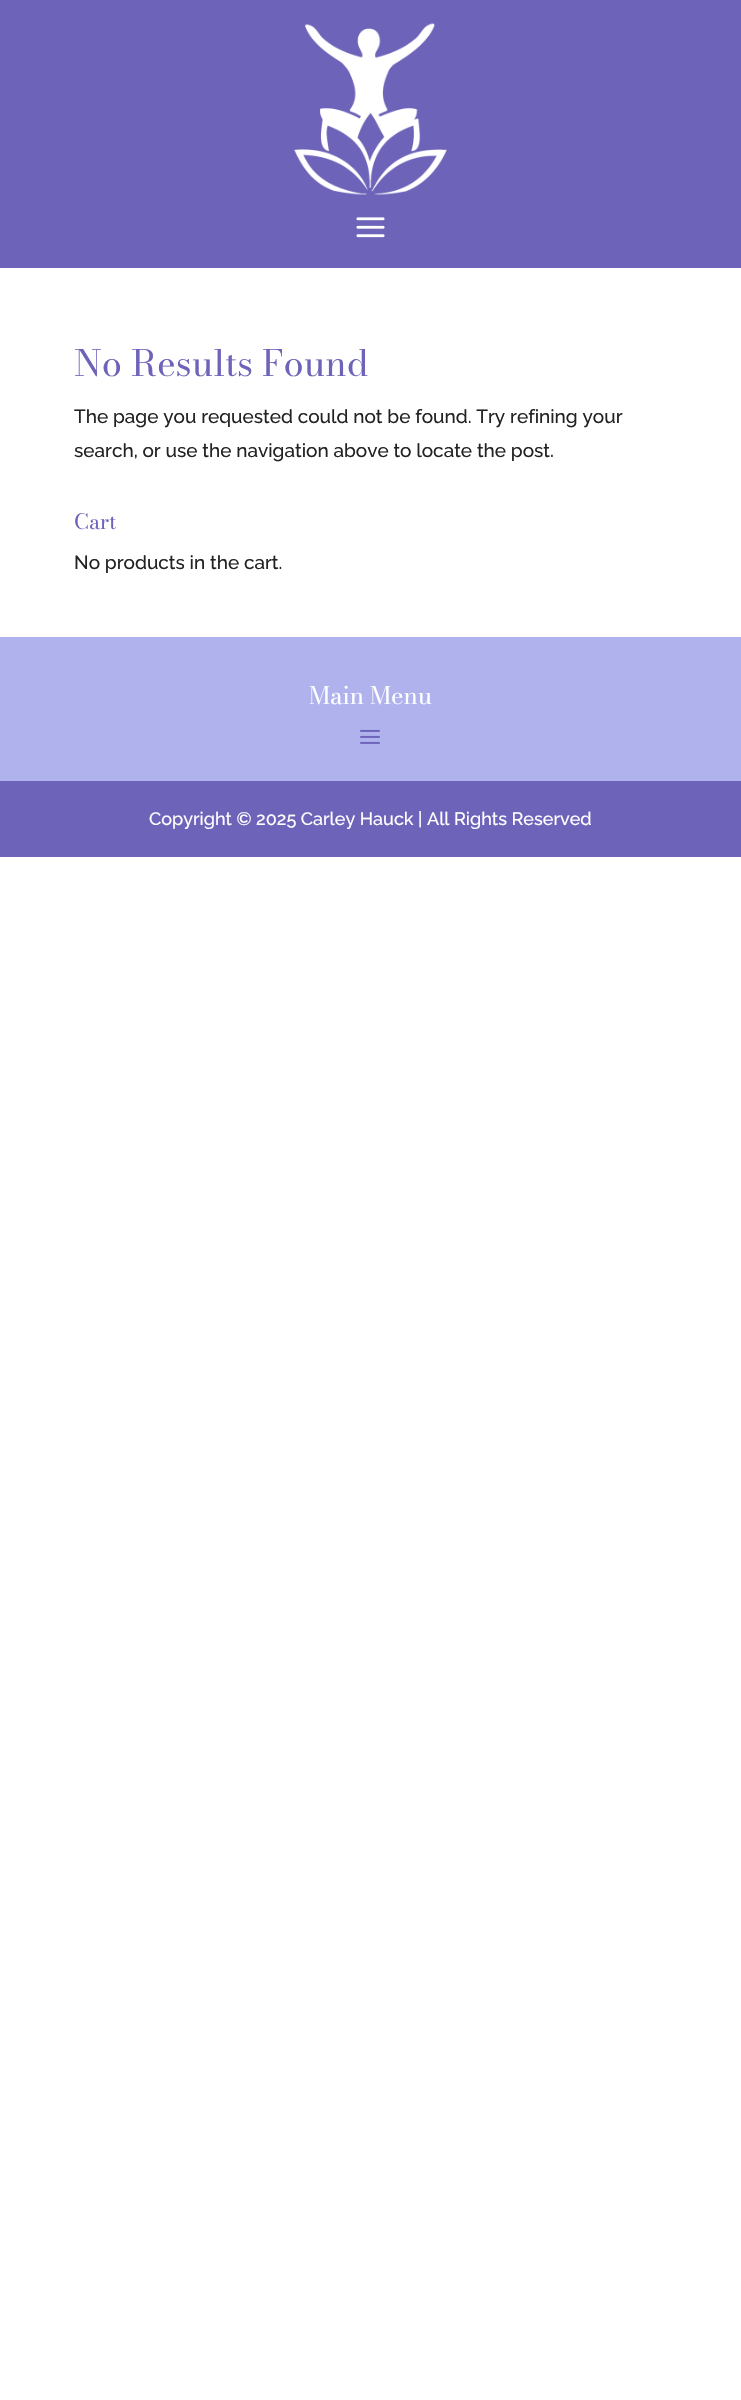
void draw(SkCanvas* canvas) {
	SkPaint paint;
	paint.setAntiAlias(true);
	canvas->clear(0xffffffff);
	paint.setColor(0xff6d63b9);
	canvas->drawRect(SkRect::MakeXYWH(0, 0, 741, 268), paint);
	canvas->drawImageRect(SkImages::DeferredFromEncodedData(SkData::MakeFromFileName("img1.png")), SkRect::MakeXYWH(294, 23, 153, 172), SkSamplingOptions());
	canvas->drawImageRect(SkImages::DeferredFromEncodedData(SkData::MakeFromFileName("img2.png")), SkRect::MakeXYWH(356, 217, 29, 21), SkSamplingOptions());
	SkFont f1(fontMgr->matchFamilyStyle("Bodoni Moda", SkFontStyle::Normal()), 36);
	f1.setSubpixel(true);
	canvas->drawString("No Results Found", 74, 376, f1, paint);
	SkFont f2(fontMgr->matchFamilyStyle("Raleway", SkFontStyle(500, SkFontStyle::kNormal_Width, SkFontStyle::kUpright_Slant)), 19);
	f2.setSubpixel(true);
	paint.setColor(0xff222222);
	canvas->drawString("The page you requested could not be found. Try refining your", 74, 423, f2, paint);
	canvas->drawString("search, or use the navigation above to locate the post.", 74, 457, f2, paint);
	SkFont f3(fontMgr->matchFamilyStyle("Bodoni Moda", SkFontStyle::Normal()), 21);
	f3.setSubpixel(true);
	paint.setColor(0xff6d63b9);
	canvas->drawString("Cart", 74, 529, f3, paint);
	paint.setColor(0xff222222);
	canvas->drawString("No products in the cart.", 74, 569, f2, paint);
	paint.setColor(0xffafb2ed);
	canvas->drawRect(SkRect::MakeXYWH(0, 637, 741, 144), paint);
	SkFont f4(fontMgr->matchFamilyStyle("Bodoni Moda", SkFontStyle::Normal()), 24);
	f4.setSubpixel(true);
	paint.setColor(0xffffffff);
	canvas->drawString("Main Menu", 309, 704, f4, paint);
	canvas->drawImageRect(SkImages::DeferredFromEncodedData(SkData::MakeFromFileName("img3.png")), SkRect::MakeXYWH(360, 729, 20, 15), SkSamplingOptions());
	paint.setColor(0xff6d63b9);
	canvas->drawRect(SkRect::MakeXYWH(0, 781, 741, 76), paint);
	SkFont f5(fontMgr->matchFamilyStyle("Raleway", SkFontStyle(500, SkFontStyle::kNormal_Width, SkFontStyle::kUpright_Slant)), 18);
	f5.setSubpixel(true);
	paint.setColor(0xffffffff);
	canvas->drawString("Copyright © 2025 Carley Hauck | All Rights Reserved", 149, 825, f5, paint);
}
